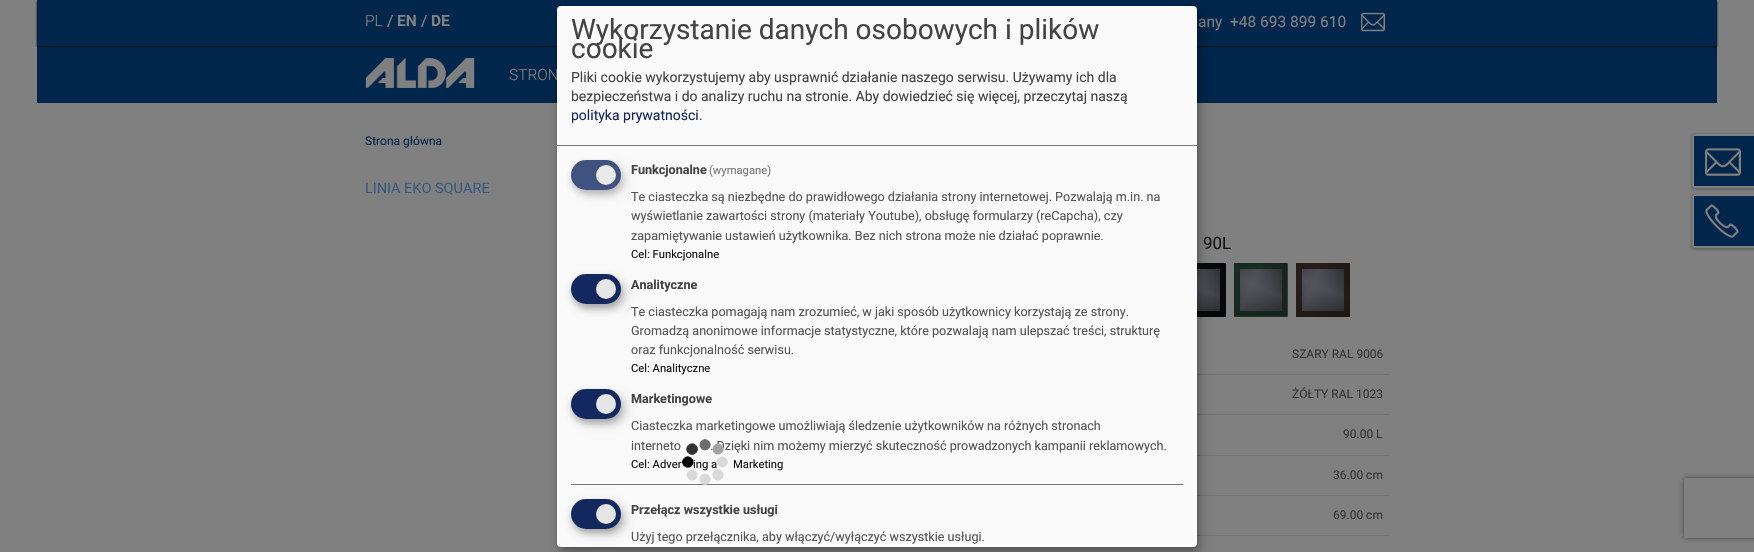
void draw(SkCanvas* canvas) {
	SkPaint paint;
	paint.setAntiAlias(true);
	auto svgPath = [&](const char* data, bool evenOdd = false) {
		SkPath result = *SkParsePath::FromSVGString(data);
		if (evenOdd) result.setFillType(SkPathFillType::kEvenOdd);
		return result;
	};
	canvas->clear(0xff808080);
	paint.setColor(0xff00264b);
	canvas->drawRect(SkRect::MakeXYWH(37, 0, 1680, 103), paint);
	canvas->save();
	canvas->clipPath(svgPath("M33 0H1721V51H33ZM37 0H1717V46H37Z", true), true);
	paint.setColor(0xff111111);
	paint.setMaskFilter(SkMaskFilter::MakeBlur(kNormal_SkBlurStyle, 1));
	canvas->drawRect(SkRect::MakeXYWH(37, 1, 1680, 46), paint);
	paint.setMaskFilter(nullptr);
	canvas->restore();
	SkFont f1(fontMgr->matchFamilyStyle("Roboto", SkFontStyle(300, SkFontStyle::kNormal_Width, SkFontStyle::kUpright_Slant)), 15.5);
	f1.setSubpixel(true);
	paint.setColor(0xff808080);
	canvas->drawString("PL", 365, 26, f1, paint);
	SkFont f2(fontMgr->matchFamilyStyle("Roboto", SkFontStyle::Normal()), 15.5);
	f2.setSubpixel(true);
	canvas->drawString("/", 387, 26, f2, paint);
	SkFont f3(fontMgr->matchFamilyStyle("Roboto", SkFontStyle::Bold()), 15.5);
	f3.setSubpixel(true);
	canvas->drawString("EN", 397, 26, f3, paint);
	canvas->drawString("/", 421, 26, f2, paint);
	canvas->drawString("DE", 431, 26, f3, paint);
	canvas->drawString("any", 1198, 27, f2, paint);
	canvas->drawString("+48 693 899 610", 1230, 27, f2, paint);
	canvas->drawImageRect(SkImages::DeferredFromEncodedData(SkData::MakeFromFileName("img1.png")), SkRect::MakeXYWH(1361, 12, 24, 20), SkSamplingOptions());
	canvas->drawImageRect(SkImages::DeferredFromEncodedData(SkData::MakeFromFileName("img2.png")), SkRect::MakeXYWH(365, 58, 110, 30), SkSamplingOptions());
	canvas->drawString("STRON", 509, 80, f1, paint);
	SkFont f4(fontMgr->matchFamilyStyle("Roboto", SkFontStyle::Normal()), 12);
	f4.setSubpixel(true);
	paint.setColor(0xff00264b);
	canvas->drawString("Strona główna", 365, 145, f4, paint);
	SkFont f5(fontMgr->matchFamilyStyle("Roboto", SkFontStyle::Normal()), 14.5);
	f5.setSubpixel(true);
	paint.setColor(0xff375a7c);
	canvas->drawString("LINIA EKO SQUARE", 365, 193, f5, paint);
	canvas->drawImageRect(SkImages::DeferredFromEncodedData(SkData::MakeFromFileName("img4.png")), SkRect::MakeXYWH(1197, 263, 29, 54), SkSamplingOptions());
	canvas->drawImageRect(SkImages::DeferredFromEncodedData(SkData::MakeFromFileName("img5.png")), SkRect::MakeXYWH(1197, 269, 23, 42), SkSamplingOptions());
	paint.setColor(0xff717478);
	canvas->drawRect(SkRect::MakeXYWH(1197, 374, 192, 1), paint);
	canvas->drawRect(SkRect::MakeXYWH(1197, 414, 192, 1), paint);
	canvas->drawRect(SkRect::MakeXYWH(1197, 455, 192, 1), paint);
	canvas->drawRect(SkRect::MakeXYWH(1197, 495, 192, 1), paint);
	canvas->drawRect(SkRect::MakeXYWH(1197, 535, 192, 1), paint);
	paint.setColor(0x30000000);
	paint.setMaskFilter(SkMaskFilter::MakeBlur(kNormal_SkBlurStyle, 5));
	canvas->drawRoundRect(SkRect::MakeXYWH(562, 11, 640, 541), 4, 4, paint);
	paint.setMaskFilter(nullptr);
	paint.setColor(0x33000000);
	paint.setMaskFilter(SkMaskFilter::MakeBlur(kNormal_SkBlurStyle, 3));
	canvas->drawRoundRect(SkRect::MakeXYWH(557, 10, 640, 541), 4, 4, paint);
	paint.setMaskFilter(nullptr);
	paint.setColor(0xfffafafa);
	canvas->drawRoundRect(SkRect::MakeXYWH(557, 6, 640, 541), 4, 4, paint);
	SkFont f6(fontMgr->matchFamilyStyle("Roboto", SkFontStyle::Normal()), 12.6);
	f6.setSubpixel(true);
	paint.setColor(0xff555555);
	canvas->drawString(". Dzięki nim możemy mierzyć skuteczność prowadzonych kampanii reklamowych.", 710, 450, f6, paint);
	SkFont f7(fontMgr->matchFamilyStyle("Roboto", SkFontStyle::Normal()), 11.25);
	f7.setSubpixel(true);
	paint.setColor(0xff111111);
	canvas->drawString("ing a", 693, 468, f7, paint);
	paint.setColor(0xff777777);
	canvas->drawRect(SkRect::MakeXYWH(571, 484, 612, 1), paint);
	canvas->drawImageRect(SkImages::DeferredFromEncodedData(SkData::MakeFromFileName("img3.png")), SkRect::MakeXYWH(682, 439, 46, 46), SkSamplingOptions());
	SkFont f8(fontMgr->matchFamilyStyle("Roboto", SkFontStyle::Normal()), 17);
	f8.setSubpixel(true);
	paint.setColor(0xff111111);
	canvas->drawString("90L", 1203, 249, f8, paint);
	canvas->drawImageRect(SkImages::DeferredFromEncodedData(SkData::MakeFromFileName("img6.png")), SkRect::MakeXYWH(1234, 263, 54, 54), SkSamplingOptions());
	canvas->drawImageRect(SkImages::DeferredFromEncodedData(SkData::MakeFromFileName("img7.png")), SkRect::MakeXYWH(1240, 269, 42, 42), SkSamplingOptions());
	canvas->drawImageRect(SkImages::DeferredFromEncodedData(SkData::MakeFromFileName("img8.png")), SkRect::MakeXYWH(1296, 263, 54, 54), SkSamplingOptions());
	canvas->drawImageRect(SkImages::DeferredFromEncodedData(SkData::MakeFromFileName("img7.png")), SkRect::MakeXYWH(1302, 269, 42, 42), SkSamplingOptions());
	paint.setColor(0xff353535);
	canvas->drawString("SZARY RAL 9006", 1292, 358, f4, paint);
	canvas->drawString("ŻÓŁTY RAL 1023", 1292, 398, f4, paint);
	canvas->drawString("90.00 L", 1343, 438, f4, paint);
	canvas->drawString("36.00 cm", 1333, 479, f4, paint);
	canvas->drawString("69.00 cm", 1333, 519, f4, paint);
	paint.setColor(0x33000000);
	paint.setMaskFilter(SkMaskFilter::MakeBlur(kNormal_SkBlurStyle, 1));
	canvas->drawRoundRect(SkRect::MakeXYWH(1691, 134, 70, 56), 4, 4, paint);
	paint.setMaskFilter(nullptr);
	paint.setStroke(true);
	paint.setStrokeWidth(2);
	paint.setColor(0xff808080);
	canvas->drawRoundRect(SkRect::MakeXYWH(1693, 135, 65, 52), 2, 2, paint);
	paint.setStroke(false);
	paint.setColor(0xff00264b);
	canvas->drawRect(SkRect::MakeXYWH(1694, 136, 60, 50), paint);
	canvas->drawImageRect(SkImages::DeferredFromEncodedData(SkData::MakeFromFileName("img9.png")), SkRect::MakeXYWH(1705, 148, 36, 28), SkSamplingOptions());
	paint.setColor(0x33000000);
	paint.setMaskFilter(SkMaskFilter::MakeBlur(kNormal_SkBlurStyle, 1));
	canvas->drawRoundRect(SkRect::MakeXYWH(1691, 194, 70, 56), 4, 4, paint);
	paint.setMaskFilter(nullptr);
	paint.setStroke(true);
	paint.setColor(0xff808080);
	canvas->drawRoundRect(SkRect::MakeXYWH(1693, 195, 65, 52), 2, 2, paint);
	paint.setStroke(false);
	paint.setColor(0xff00264b);
	canvas->drawRect(SkRect::MakeXYWH(1694, 196, 60, 50), paint);
	canvas->drawImageRect(SkImages::DeferredFromEncodedData(SkData::MakeFromFileName("img10.png")), SkRect::MakeXYWH(1705, 204, 34, 34), SkSamplingOptions());
	paint.setColor(0xff777777);
	canvas->drawRect(SkRect::MakeXYWH(557, 145, 640, 1), paint);
	SkFont f9(fontMgr->matchFamilyStyle("Roboto", SkFontStyle::Normal()), 28);
	f9.setSubpixel(true);
	paint.setColor(0xff444444);
	canvas->drawString("Wykorzystanie danych osobowych i plików", 571, 39, f9, paint);
	canvas->drawString("cookie", 571, 58, f9, paint);
	SkFont f10(fontMgr->matchFamilyStyle("Roboto", SkFontStyle::Normal()), 14);
	f10.setSubpixel(true);
	canvas->drawString("Pliki cookie wykorzystujemy aby usprawnić działanie naszego serwisu. Używamy ich dla", 571, 82, f10, paint);
	canvas->drawString("bezpieczeństwa i do analizy ruchu na stronie. Aby dowiedzieć się więcej, przeczytaj naszą", 571, 101, f10, paint);
	paint.setColor(0xff12285f);
	canvas->drawString("polityka prywatności", 571, 120, f10, paint);
	paint.setColor(0xff444444);
	canvas->drawString(".", 699, 120, f10, paint);
	paint.setColor(0x26000000);
	paint.setMaskFilter(SkMaskFilter::MakeBlur(kNormal_SkBlurStyle, 5));
	canvas->drawRoundRect(SkRect::MakeXYWH(576, 165, 50, 30), 15, 15, paint);
	paint.setMaskFilter(nullptr);
	paint.setColor(0x33323232);
	paint.setMaskFilter(SkMaskFilter::MakeBlur(kNormal_SkBlurStyle, 3));
	canvas->drawRoundRect(SkRect::MakeXYWH(571, 164, 50, 30), 15, 15, paint);
	paint.setMaskFilter(nullptr);
	paint.setColor(0xff40527e);
	canvas->drawRoundRect(SkRect::MakeXYWH(571, 160, 50, 30), 15, 15, paint);
	paint.setColor(0xffeaeaea);
	canvas->drawCircle(606, 175, 10, paint);
	SkFont f11(fontMgr->matchFamilyStyle("Roboto", SkFontStyle::Bold()), 12.6);
	f11.setSubpixel(true);
	paint.setColor(0xff444444);
	canvas->drawString("Funkcjonalne", 631, 174, f11, paint);
	paint.setColor(0xff777777);
	canvas->drawString("(wymagane)", 709, 174, f7, paint);
	paint.setColor(0xff555555);
	canvas->drawString("Te ciasteczka są niezbędne do prawidłowego działania strony internetowej. Pozwalają m.in. na", 631, 201, f6, paint);
	canvas->drawString("wyświetlanie zawartości strony (materiały Youtube), obsługę formularzy (reCapcha), czy", 631, 220, f6, paint);
	canvas->drawString("zapamiętywanie ustawień użytkownika. Bez nich strona może nie działać poprawnie.", 631, 240, f6, paint);
	paint.setColor(0xff111111);
	canvas->drawString("Cel: Funkcjonalne", 631, 258, f7, paint);
	paint.setColor(0x30000000);
	paint.setMaskFilter(SkMaskFilter::MakeBlur(kNormal_SkBlurStyle, 5));
	canvas->drawRoundRect(SkRect::MakeXYWH(576, 279, 50, 30), 15, 15, paint);
	paint.setMaskFilter(nullptr);
	paint.setColor(0x33000000);
	paint.setMaskFilter(SkMaskFilter::MakeBlur(kNormal_SkBlurStyle, 3));
	canvas->drawRoundRect(SkRect::MakeXYWH(571, 278, 50, 30), 15, 15, paint);
	paint.setMaskFilter(nullptr);
	paint.setColor(0xff12285f);
	canvas->drawRoundRect(SkRect::MakeXYWH(571, 274, 50, 30), 15, 15, paint);
	paint.setColor(0xffe6e6e6);
	canvas->drawCircle(606, 289, 10, paint);
	paint.setColor(0xff444444);
	canvas->drawString("Analityczne", 631, 289, f11, paint);
	paint.setColor(0xff555555);
	canvas->drawString("Te ciasteczka pomagają nam zrozumieć, w jaki sposób użytkownicy korzystają ze strony.", 631, 316, f6, paint);
	canvas->drawString("Gromadzą anonimowe informacje statystyczne, które pozwalają nam ulepszać treści, strukturę", 631, 335, f6, paint);
	canvas->drawString("oraz funkcjonalność serwisu.", 631, 354, f6, paint);
	paint.setColor(0xff111111);
	canvas->drawString("Cel: Analityczne", 631, 372, f7, paint);
	paint.setColor(0x30000000);
	paint.setMaskFilter(SkMaskFilter::MakeBlur(kNormal_SkBlurStyle, 5));
	canvas->drawRoundRect(SkRect::MakeXYWH(576, 394, 50, 30), 15, 15, paint);
	paint.setMaskFilter(nullptr);
	paint.setColor(0x33000000);
	paint.setMaskFilter(SkMaskFilter::MakeBlur(kNormal_SkBlurStyle, 3));
	canvas->drawRoundRect(SkRect::MakeXYWH(571, 393, 50, 30), 15, 15, paint);
	paint.setMaskFilter(nullptr);
	paint.setColor(0xff12285f);
	canvas->drawRoundRect(SkRect::MakeXYWH(571, 389, 50, 30), 15, 15, paint);
	paint.setColor(0xffe6e6e6);
	canvas->drawCircle(606, 404, 10, paint);
	paint.setColor(0xff444444);
	canvas->drawString("Marketingowe", 631, 403, f11, paint);
	paint.setColor(0xff555555);
	canvas->drawString("Ciasteczka marketingowe umożliwiają śledzenie użytkowników na różnych stronach", 631, 430, f6, paint);
	canvas->drawString("interneto", 631, 450, f6, paint);
	paint.setColor(0xff111111);
	canvas->drawString("Cel: Adver", 631, 468, f7, paint);
	canvas->drawString("Marketing", 733, 468, f7, paint);
	paint.setColor(0x30000000);
	paint.setMaskFilter(SkMaskFilter::MakeBlur(kNormal_SkBlurStyle, 5));
	canvas->drawRoundRect(SkRect::MakeXYWH(576, 504, 50, 30), 15, 15, paint);
	paint.setMaskFilter(nullptr);
	paint.setColor(0x33000000);
	paint.setMaskFilter(SkMaskFilter::MakeBlur(kNormal_SkBlurStyle, 3));
	canvas->drawRoundRect(SkRect::MakeXYWH(571, 503, 50, 30), 15, 15, paint);
	paint.setMaskFilter(nullptr);
	paint.setColor(0xff12285f);
	canvas->drawRoundRect(SkRect::MakeXYWH(571, 499, 50, 30), 15, 15, paint);
	paint.setColor(0xffe6e6e6);
	canvas->drawCircle(606, 514, 10, paint);
	paint.setColor(0xff444444);
	canvas->drawString("Przełącz wszystkie usługi", 631, 514, f11, paint);
	paint.setColor(0xff555555);
	canvas->drawString("Użyj tego przełącznika, aby włączyć/wyłączyć wszystkie usługi.", 631, 541, f6, paint);
	canvas->save();
	canvas->clipPath(svgPath("M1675 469H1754V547H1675ZM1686 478H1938C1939 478 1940 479 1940 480V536C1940 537 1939 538 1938 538H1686C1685 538 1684 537 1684 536V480C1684 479 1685 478 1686 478Z", true), true);
	paint.setColor(0xff404040);
	paint.setMaskFilter(SkMaskFilter::MakeBlur(kNormal_SkBlurStyle, 2.5));
	canvas->drawRoundRect(SkRect::MakeXYWH(1684, 478, 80, 60), 2, 2, paint);
	paint.setMaskFilter(nullptr);
	canvas->restore();
}
